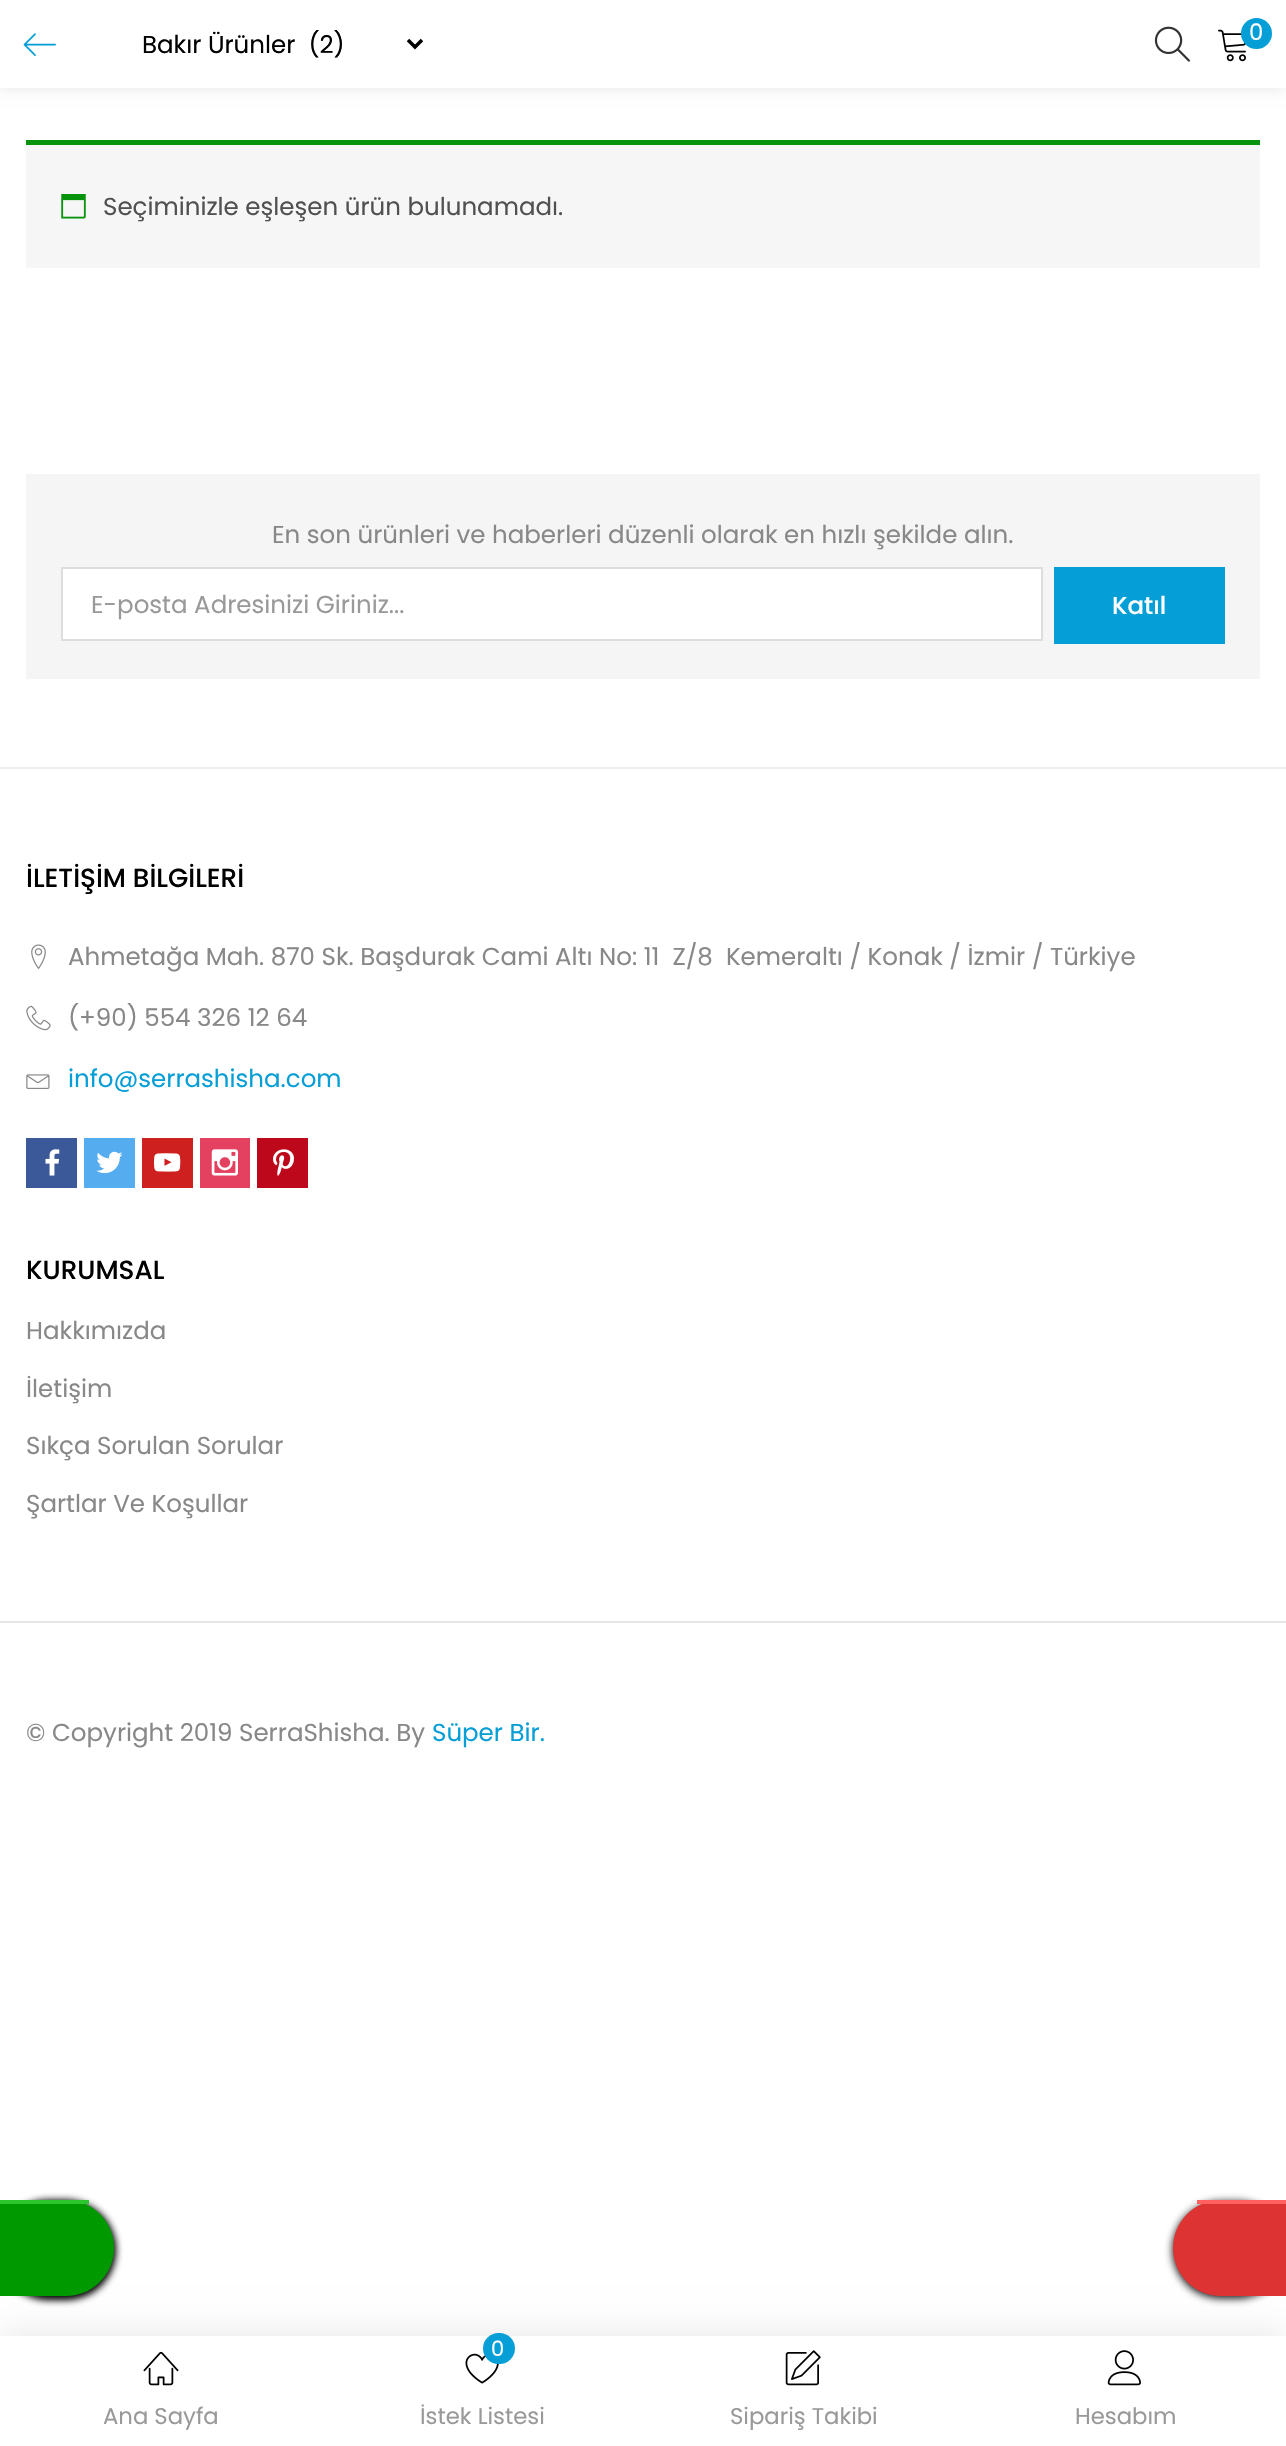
void draw(SkCanvas* canvas) {
	SkPaint paint;
	paint.setAntiAlias(true);
	auto svgPath = [&](const char* data, bool evenOdd = false) {
		SkPath result = *SkParsePath::FromSVGString(data);
		if (evenOdd) result.setFillType(SkPathFillType::kEvenOdd);
		return result;
	};
	canvas->clear(0xffffffff);
	paint.setColor(0x1a000000);
	paint.setMaskFilter(SkMaskFilter::MakeBlur(kNormal_SkBlurStyle, 7));
	canvas->drawRect(SkRect::MakeXYWH(0, 0, 1286, 88), paint);
	paint.setMaskFilter(nullptr);
	paint.setColor(0xffffffff);
	canvas->drawRect(SkRect::MakeXYWH(0, 0, 1286, 88), paint);
	canvas->drawImageRect(SkImages::DeferredFromEncodedData(SkData::MakeFromFileName("img1.png")), SkRect::MakeXYWH(23, 33, 33, 23), SkSamplingOptions());
	paint.setStroke(true);
	paint.setStrokeWidth(3.5);
	paint.setColor(0xff000000);
	canvas->drawPath(svgPath("M408 40L415 47L422 40"), paint);
	SkFont f1(fontMgr->matchFamilyStyle("Poppins", SkFontStyle::Normal()), 24.5);
	f1.setSubpixel(true);
	paint.setStroke(false);
	canvas->drawString("Bakır Ürünler  (2)", 142, 53, f1, paint);
	canvas->drawImageRect(SkImages::DeferredFromEncodedData(SkData::MakeFromFileName("img2.png")), SkRect::MakeXYWH(1154, 26, 36, 36), SkSamplingOptions());
	canvas->drawImageRect(SkImages::DeferredFromEncodedData(SkData::MakeFromFileName("img3.png")), SkRect::MakeXYWH(1218, 29, 28, 33), SkSamplingOptions());
	paint.setColor(0xff069ed6);
	canvas->drawCircle(1256.5, 33.5, 15.5, paint);
	SkFont f2(fontMgr->matchFamilyStyle("Poppins", SkFontStyle::Normal()), 22.75);
	f2.setSubpixel(true);
	paint.setColor(0xffffffff);
	canvas->drawString("0", 1249, 40, f2, paint);
	paint.setColor(0xfff7f6f7);
	canvas->drawRect(SkRect::MakeXYWH(26, 145, 1234, 123), paint);
	paint.setColor(0xff07930b);
	canvas->drawRect(SkRect::MakeXYWH(26, 140, 1234, 5), paint);
	canvas->drawImageRect(SkImages::DeferredFromEncodedData(SkData::MakeFromFileName("img4.png")), SkRect::MakeXYWH(61, 194, 25, 25), SkSamplingOptions());
	paint.setColor(0xff515151);
	canvas->drawString("Seçiminizle eşleşen ürün bulunamadı.", 103, 215, f1, paint);
	paint.setColor(0xfff5f5f5);
	canvas->drawRect(SkRect::MakeXYWH(26, 474, 1234, 205), paint);
	paint.setColor(0xff888888);
	canvas->drawString("En son ürünleri ve haberleri düzenli olarak en hızlı şekilde alın.", 272, 543, f1, paint);
	paint.setColor(0xffffffff);
	canvas->drawRect(SkRect::MakeXYWH(62, 568, 980, 72), paint);
	paint.setStroke(true);
	paint.setStrokeWidth(2);
	paint.setColor(0xffdddddd);
	canvas->drawRect(SkRect::MakeXYWH(62, 568, 980, 72), paint);
	paint.setStroke(false);
	paint.setColor(0xff999999);
	canvas->drawString("E-posta Adresinizi Giriniz...", 91, 613, f1, paint);
	paint.setColor(0xff069ed6);
	canvas->drawRect(SkRect::MakeXYWH(1054, 567, 171, 77), paint);
	SkFont f3(fontMgr->matchFamilyStyle("Poppins", SkFontStyle(500, SkFontStyle::kNormal_Width, SkFontStyle::kUpright_Slant)), 24.5);
	f3.setSubpixel(true);
	paint.setColor(0xffffffff);
	canvas->drawString("Katıl", 1112, 614, f3, paint);
	paint.setColor(0xffeeeeee);
	canvas->drawRect(SkRect::MakeXYWH(0, 767, 1286, 2), paint);
	SkFont f4(fontMgr->matchFamilyStyle("Poppins", SkFontStyle(500, SkFontStyle::kNormal_Width, SkFontStyle::kUpright_Slant)), 26.25);
	f4.setSubpixel(true);
	paint.setColor(0xff000000);
	canvas->drawString("İLETİŞİM BİLGİLERİ", 26, 887, f4, paint);
	canvas->drawImageRect(SkImages::DeferredFromEncodedData(SkData::MakeFromFileName("img5.png")), SkRect::MakeXYWH(31, 944, 15, 25), SkSamplingOptions());
	paint.setColor(0xff888888);
	canvas->drawString("Ahmetağa Mah. 870 Sk. Başdurak Cami Altı No: 11  Z/8  Kemeraltı / Konak / İzmir / Türkiye", 68, 965, f1, paint);
	canvas->drawImageRect(SkImages::DeferredFromEncodedData(SkData::MakeFromFileName("img6.png")), SkRect::MakeXYWH(26, 1005, 25, 26), SkSamplingOptions());
	canvas->drawString("(+90) 554 326 12 64", 68, 1026, f1, paint);
	canvas->drawImageRect(SkImages::DeferredFromEncodedData(SkData::MakeFromFileName("img7.png")), SkRect::MakeXYWH(26, 1074, 24, 15), SkSamplingOptions());
	paint.setColor(0xff069ed6);
	canvas->drawString("info@serrashisha.com", 68, 1087, f1, paint);
	paint.setColor(0xff3b5999);
	canvas->drawRect(SkRect::MakeXYWH(26, 1138, 51, 50), paint);
	canvas->drawImageRect(SkImages::DeferredFromEncodedData(SkData::MakeFromFileName("img8.png")), SkRect::MakeXYWH(45, 1149, 15, 27), SkSamplingOptions());
	paint.setColor(0xff55acee);
	canvas->drawRect(SkRect::MakeXYWH(84, 1138, 51, 50), paint);
	canvas->drawImageRect(SkImages::DeferredFromEncodedData(SkData::MakeFromFileName("img9.png")), SkRect::MakeXYWH(96, 1151, 27, 23), SkSamplingOptions());
	paint.setColor(0xffcd201f);
	canvas->drawRect(SkRect::MakeXYWH(142, 1138, 51, 50), paint);
	canvas->drawImageRect(SkImages::DeferredFromEncodedData(SkData::MakeFromFileName("img10.png")), SkRect::MakeXYWH(154, 1153, 27, 19), SkSamplingOptions());
	paint.setColor(0xffe4405f);
	canvas->drawRect(SkRect::MakeXYWH(200, 1138, 50, 50), paint);
	canvas->drawImageRect(SkImages::DeferredFromEncodedData(SkData::MakeFromFileName("img11.png")), SkRect::MakeXYWH(211, 1149, 27, 27), SkSamplingOptions());
	paint.setColor(0xffbd081c);
	canvas->drawRect(SkRect::MakeXYWH(257, 1138, 51, 50), paint);
	canvas->drawImageRect(SkImages::DeferredFromEncodedData(SkData::MakeFromFileName("img12.png")), SkRect::MakeXYWH(273, 1149, 21, 27), SkSamplingOptions());
	paint.setColor(0xff000000);
	canvas->drawString("KURUMSAL", 26, 1279, f4, paint);
	paint.setColor(0xff888888);
	canvas->drawString("Hakkımızda", 26, 1339, f1, paint);
	canvas->drawString("İletişim", 26, 1397, f1, paint);
	canvas->drawString("Sıkça Sorulan Sorular", 26, 1454, f1, paint);
	canvas->drawString("Şartlar Ve Koşullar", 26, 1512, f1, paint);
	paint.setColor(0xffe5e5e5);
	canvas->drawRect(SkRect::MakeXYWH(0, 1621, 1286, 2), paint);
	paint.setColor(0xff888888);
	canvas->drawString("© Copyright 2019 SerraShisha. By", 26, 1741, f1, paint);
	paint.setColor(0xff069ed6);
	canvas->drawString("Süper Bir.", 432, 1741, f1, paint);
	paint.setColor(0x1a000000);
	paint.setMaskFilter(SkMaskFilter::MakeBlur(kNormal_SkBlurStyle, 17.5));
	canvas->drawRect(SkRect::MakeXYWH(0, 2336, 1286, 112), paint);
	paint.setMaskFilter(nullptr);
	paint.setColor(0xffffffff);
	canvas->drawRect(SkRect::MakeXYWH(0, 2336, 1286, 110), paint);
	canvas->drawImageRect(SkImages::DeferredFromEncodedData(SkData::MakeFromFileName("img13.png")), SkRect::MakeXYWH(143, 2351, 36, 35), SkSamplingOptions());
	paint.setColor(0xff999999);
	canvas->drawString("Ana Sayfa", 103, 2424, f2, paint);
	canvas->drawImageRect(SkImages::DeferredFromEncodedData(SkData::MakeFromFileName("img14.png")), SkRect::MakeXYWH(465, 2353, 34, 31), SkSamplingOptions());
	paint.setColor(0xff069ed6);
	canvas->drawRoundRect(SkRect::MakeXYWH(483, 2333, 32, 31), 15.5, 15.5, paint);
	SkFont f5(fontMgr->matchFamilyStyle("Poppins", SkFontStyle::Normal()), 21);
	f5.setSubpixel(true);
	paint.setColor(0xffffffff);
	canvas->drawString("0", 491, 2356, f5, paint);
	paint.setColor(0xff999999);
	canvas->drawString("İstek Listesi", 420, 2424, f2, paint);
	canvas->drawImageRect(SkImages::DeferredFromEncodedData(SkData::MakeFromFileName("img15.png")), SkRect::MakeXYWH(785, 2350, 36, 36), SkSamplingOptions());
	canvas->drawString("Sipariş Takibi", 730, 2424, f2, paint);
	canvas->drawImageRect(SkImages::DeferredFromEncodedData(SkData::MakeFromFileName("img16.png")), SkRect::MakeXYWH(1107, 2350, 34, 36), SkSamplingOptions());
	canvas->drawString("Hesabım", 1075, 2424, f2, paint);
	paint.setColor(0xff000000);
	paint.setMaskFilter(SkMaskFilter::MakeBlur(kNormal_SkBlurStyle, 4.5));
	canvas->drawRoundRect(SkRect::MakeXYWH(0, 2202, 114, 96), 48, 48, paint);
	paint.setMaskFilter(nullptr);
	paint.setMaskFilter(SkMaskFilter::MakeBlur(kNormal_SkBlurStyle, 4.5));
	canvas->drawRoundRect(SkRect::MakeXYWH(0, 2202, 114, 96), 48, 48, paint);
	paint.setMaskFilter(nullptr);
	paint.setColor(0xff009900);
	canvas->drawPath(svgPath("M0 2200H66C92.5 2200 114 2221.5 114 2248C114 2274.5 92.5 2296 66 2296H0Z"), paint);
	paint.setColor(0xff2dc62d);
	canvas->drawRect(SkRect::MakeXYWH(0, 2200, 89, 4), paint);
	paint.setColor(0xff000000);
	paint.setMaskFilter(SkMaskFilter::MakeBlur(kNormal_SkBlurStyle, 4.5));
	canvas->drawRoundRect(SkRect::MakeXYWH(1173, 2202, 113, 96), 48, 48, paint);
	paint.setMaskFilter(nullptr);
	paint.setColor(0xffdd3333);
	canvas->drawPath(svgPath("M1221 2200H1286V2296H1221C1194.5 2296 1173 2274.5 1173 2248C1173 2221.5 1194.5 2200 1221 2200Z"), paint);
	paint.setColor(0xffff6060);
	canvas->drawRect(SkRect::MakeXYWH(1197, 2200, 89, 4), paint);
}
